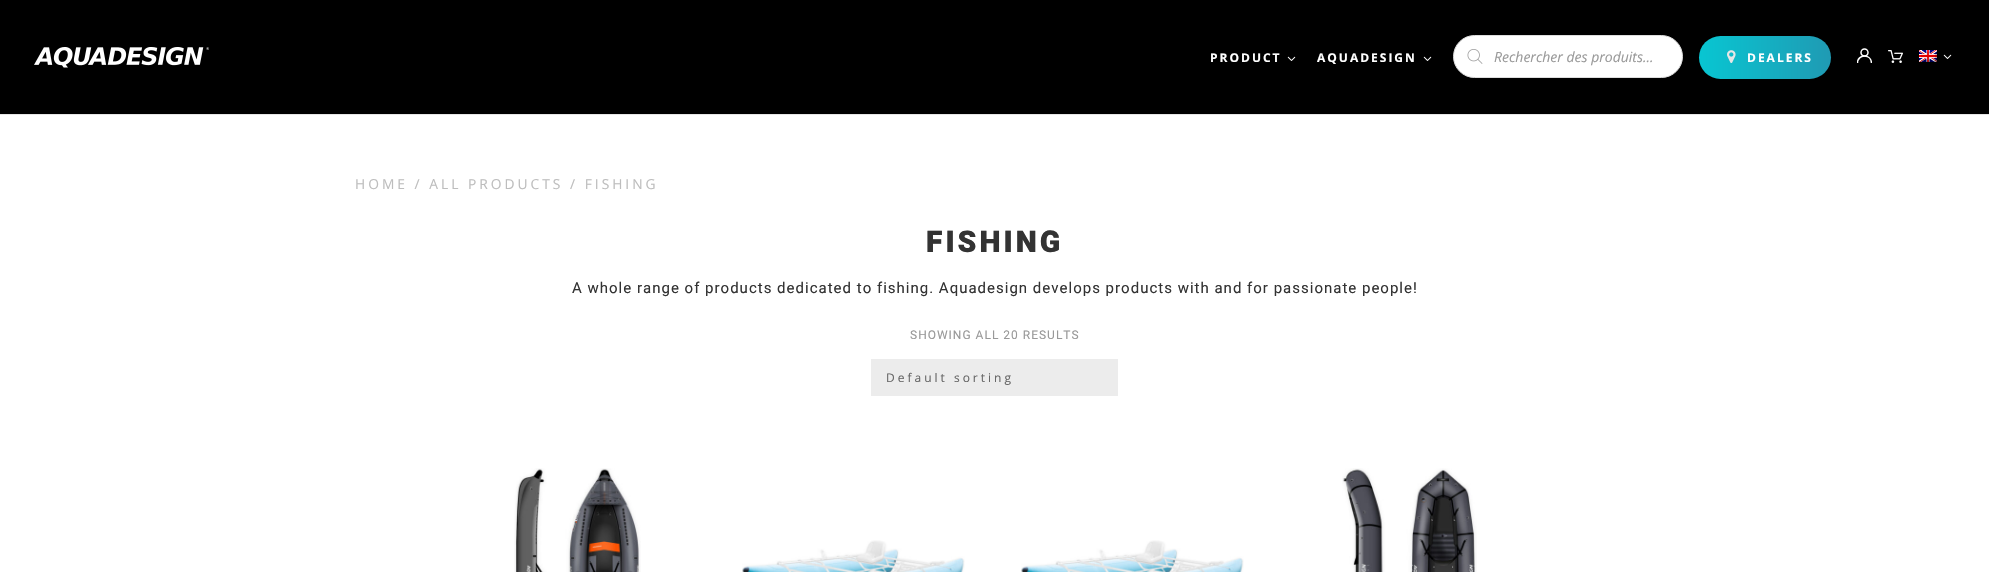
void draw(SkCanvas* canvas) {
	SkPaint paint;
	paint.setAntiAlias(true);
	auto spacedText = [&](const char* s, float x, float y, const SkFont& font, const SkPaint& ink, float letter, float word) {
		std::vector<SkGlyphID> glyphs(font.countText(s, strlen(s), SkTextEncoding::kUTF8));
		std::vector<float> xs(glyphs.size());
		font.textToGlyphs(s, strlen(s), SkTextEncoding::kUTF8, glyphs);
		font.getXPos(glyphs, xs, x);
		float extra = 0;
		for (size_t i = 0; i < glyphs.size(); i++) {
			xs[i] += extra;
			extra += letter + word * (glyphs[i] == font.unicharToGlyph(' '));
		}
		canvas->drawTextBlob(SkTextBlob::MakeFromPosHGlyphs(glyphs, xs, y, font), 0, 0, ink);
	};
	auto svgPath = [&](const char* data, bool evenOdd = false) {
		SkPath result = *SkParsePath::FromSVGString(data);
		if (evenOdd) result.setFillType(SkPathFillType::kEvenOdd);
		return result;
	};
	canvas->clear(0xffffffff);
	paint.setColor(0xffe6e6e6);
	canvas->drawRect(SkRect::MakeXYWH(0, 114, 1989, 1), paint);
	paint.setColor(0xff000000);
	canvas->drawRect(SkRect::MakeXYWH(0, 0, 1989, 114), paint);
	canvas->drawImageRect(SkImages::DeferredFromEncodedData(SkData::MakeFromFileName("img1.png")), SkRect::MakeXYWH(34, 47, 175, 21), SkSamplingOptions());
	SkFont f1(fontMgr->matchFamilyStyle("Open Sans", SkFontStyle::Bold()), 12);
	f1.setSubpixel(true);
	paint.setColor(0xffffffff);
	spacedText("PRODUCT", 1210, 62, f1, paint, 2, 0);
	canvas->drawImageRect(SkImages::DeferredFromEncodedData(SkData::MakeFromFileName("img2.png")), SkRect::MakeXYWH(1287, 56, 9, 5), SkSamplingOptions());
	spacedText("AQUADESIGN", 1317, 62, f1, paint, 2, 0);
	canvas->drawImageRect(SkImages::DeferredFromEncodedData(SkData::MakeFromFileName("img2.png")), SkRect::MakeXYWH(1423, 56, 9, 5), SkSamplingOptions());
	canvas->drawRoundRect(SkRect::MakeXYWH(1453.5, 35.5, 229, 42), 21, 21, paint);
	paint.setStroke(true);
	paint.setStrokeWidth(1);
	paint.setColor(0xffdddddd);
	canvas->drawRoundRect(SkRect::MakeXYWH(1453.5, 35.5, 229, 42), 21, 21, paint);
	canvas->drawImageRect(SkImages::DeferredFromEncodedData(SkData::MakeFromFileName("img3.png")), SkRect::MakeXYWH(1467, 49, 16, 15), SkSamplingOptions());
	SkFont f2(fontMgr->matchFamilyStyle("Open Sans", SkFontStyle::Italic()), 14);
	f2.setSubpixel(true);
	paint.setStroke(false);
	paint.setColor(0xff999999);
	canvas->drawString("Rechercher des produits...", 1494, 62, f2, paint);
	{
		const SkColor colors[] = {0xff08c6d2, 0xff4e4376};
		const float stops[] = {0, 1};
		const SkPoint ends[] = {{1699, 101}, {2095, 100}};
		paint.setShader(SkGradientShader::MakeLinear(ends, colors, stops, 2, SkTileMode::kClamp));
		paint.setAlpha(255);
	}
	canvas->drawRoundRect(SkRect::MakeXYWH(1699, 36, 132, 43), 21.5, 21.5, paint);
	canvas->drawImageRect(SkImages::DeferredFromEncodedData(SkData::MakeFromFileName("img4.png")), SkRect::MakeXYWH(1727, 50, 9, 13), SkSamplingOptions());
	paint.setShader(nullptr);
	paint.setColor(0xffffffff);
	spacedText("DEALERS", 1747, 62, f1, paint, 2, 0);
	paint.setStroke(true);
	paint.setStrokeWidth(1.5);
	canvas->drawCircle(1864.5, 52.5, 3.5, paint);
	canvas->save();
	canvas->clipRect(SkRect::MakeXYWH(1857, 48, 15, 15));
	paint.setStrokeCap(SkPaint::kRound_Cap);
	canvas->drawPath(svgPath("M1857.5 63C1857.5 54 1871 53.5 1871.5 63"), paint);
	canvas->restore();
	canvas->drawImageRect(SkImages::DeferredFromEncodedData(SkData::MakeFromFileName("img5.png")), SkRect::MakeXYWH(1888, 50, 15, 13), SkSamplingOptions());
	canvas->drawImageRect(SkImages::DeferredFromEncodedData(SkData::MakeFromFileName("img6.png")), SkRect::MakeXYWH(1919, 50, 18, 12), SkSamplingOptions());
	canvas->drawImageRect(SkImages::DeferredFromEncodedData(SkData::MakeFromFileName("img2.png")), SkRect::MakeXYWH(1943, 54, 9, 5), SkSamplingOptions());
	SkFont f3(fontMgr->matchFamilyStyle("Open Sans", SkFontStyle::Normal()), 13.8);
	f3.setSubpixel(true);
	paint.setStroke(false);
	paint.setColor(0xffbdbdbd);
	spacedText("HOME / ALL PRODUCTS / FISHING", 355, 189, f3, paint, 3, 0);
	SkFont f4(fontMgr->matchFamilyStyle("Heebo", SkFontStyle(900, SkFontStyle::kNormal_Width, SkFontStyle::kUpright_Slant)), 30);
	f4.setSubpixel(true);
	paint.setColor(0xff333333);
	spacedText("FISHING", 926, 252, f4, paint, 3, 0);
	SkFont f5(fontMgr->matchFamilyStyle("Heebo", SkFontStyle::Normal()), 15);
	f5.setSubpixel(true);
	spacedText("A whole range of products dedicated to fishing. Aquadesign develops products with and for passionate people!", 572, 293, f5, paint, 1, 0);
	SkFont f6(fontMgr->matchFamilyStyle("Heebo", SkFontStyle::Normal()), 12);
	f6.setSubpixel(true);
	paint.setColor(0xff999999);
	spacedText("SHOWING ALL 20 RESULTS", 910, 339, f6, paint, 1, 0);
	paint.setColor(0xffececec);
	canvas->drawRect(SkRect::MakeXYWH(871, 359, 247, 37), paint);
	SkFont f7(fontMgr->matchFamilyStyle("Open Sans", SkFontStyle::Normal()), 12);
	f7.setSubpixel(true);
	paint.setColor(0xff666666);
	spacedText("Default sorting", 886, 382, f7, paint, 3, 0);
	canvas->drawImageRect(SkImages::DeferredFromEncodedData(SkData::MakeFromFileName("img7.png")), SkRect::MakeXYWH(514, 468, 127, 104), SkSamplingOptions());
	canvas->drawImageRect(SkImages::DeferredFromEncodedData(SkData::MakeFromFileName("img8.png")), SkRect::MakeXYWH(742, 540, 223, 32), SkSamplingOptions());
	canvas->drawImageRect(SkImages::DeferredFromEncodedData(SkData::MakeFromFileName("img9.png")), SkRect::MakeXYWH(1021, 540, 223, 32), SkSamplingOptions());
	canvas->drawImageRect(SkImages::DeferredFromEncodedData(SkData::MakeFromFileName("img10.png")), SkRect::MakeXYWH(1342, 468, 135, 104), SkSamplingOptions());
}
